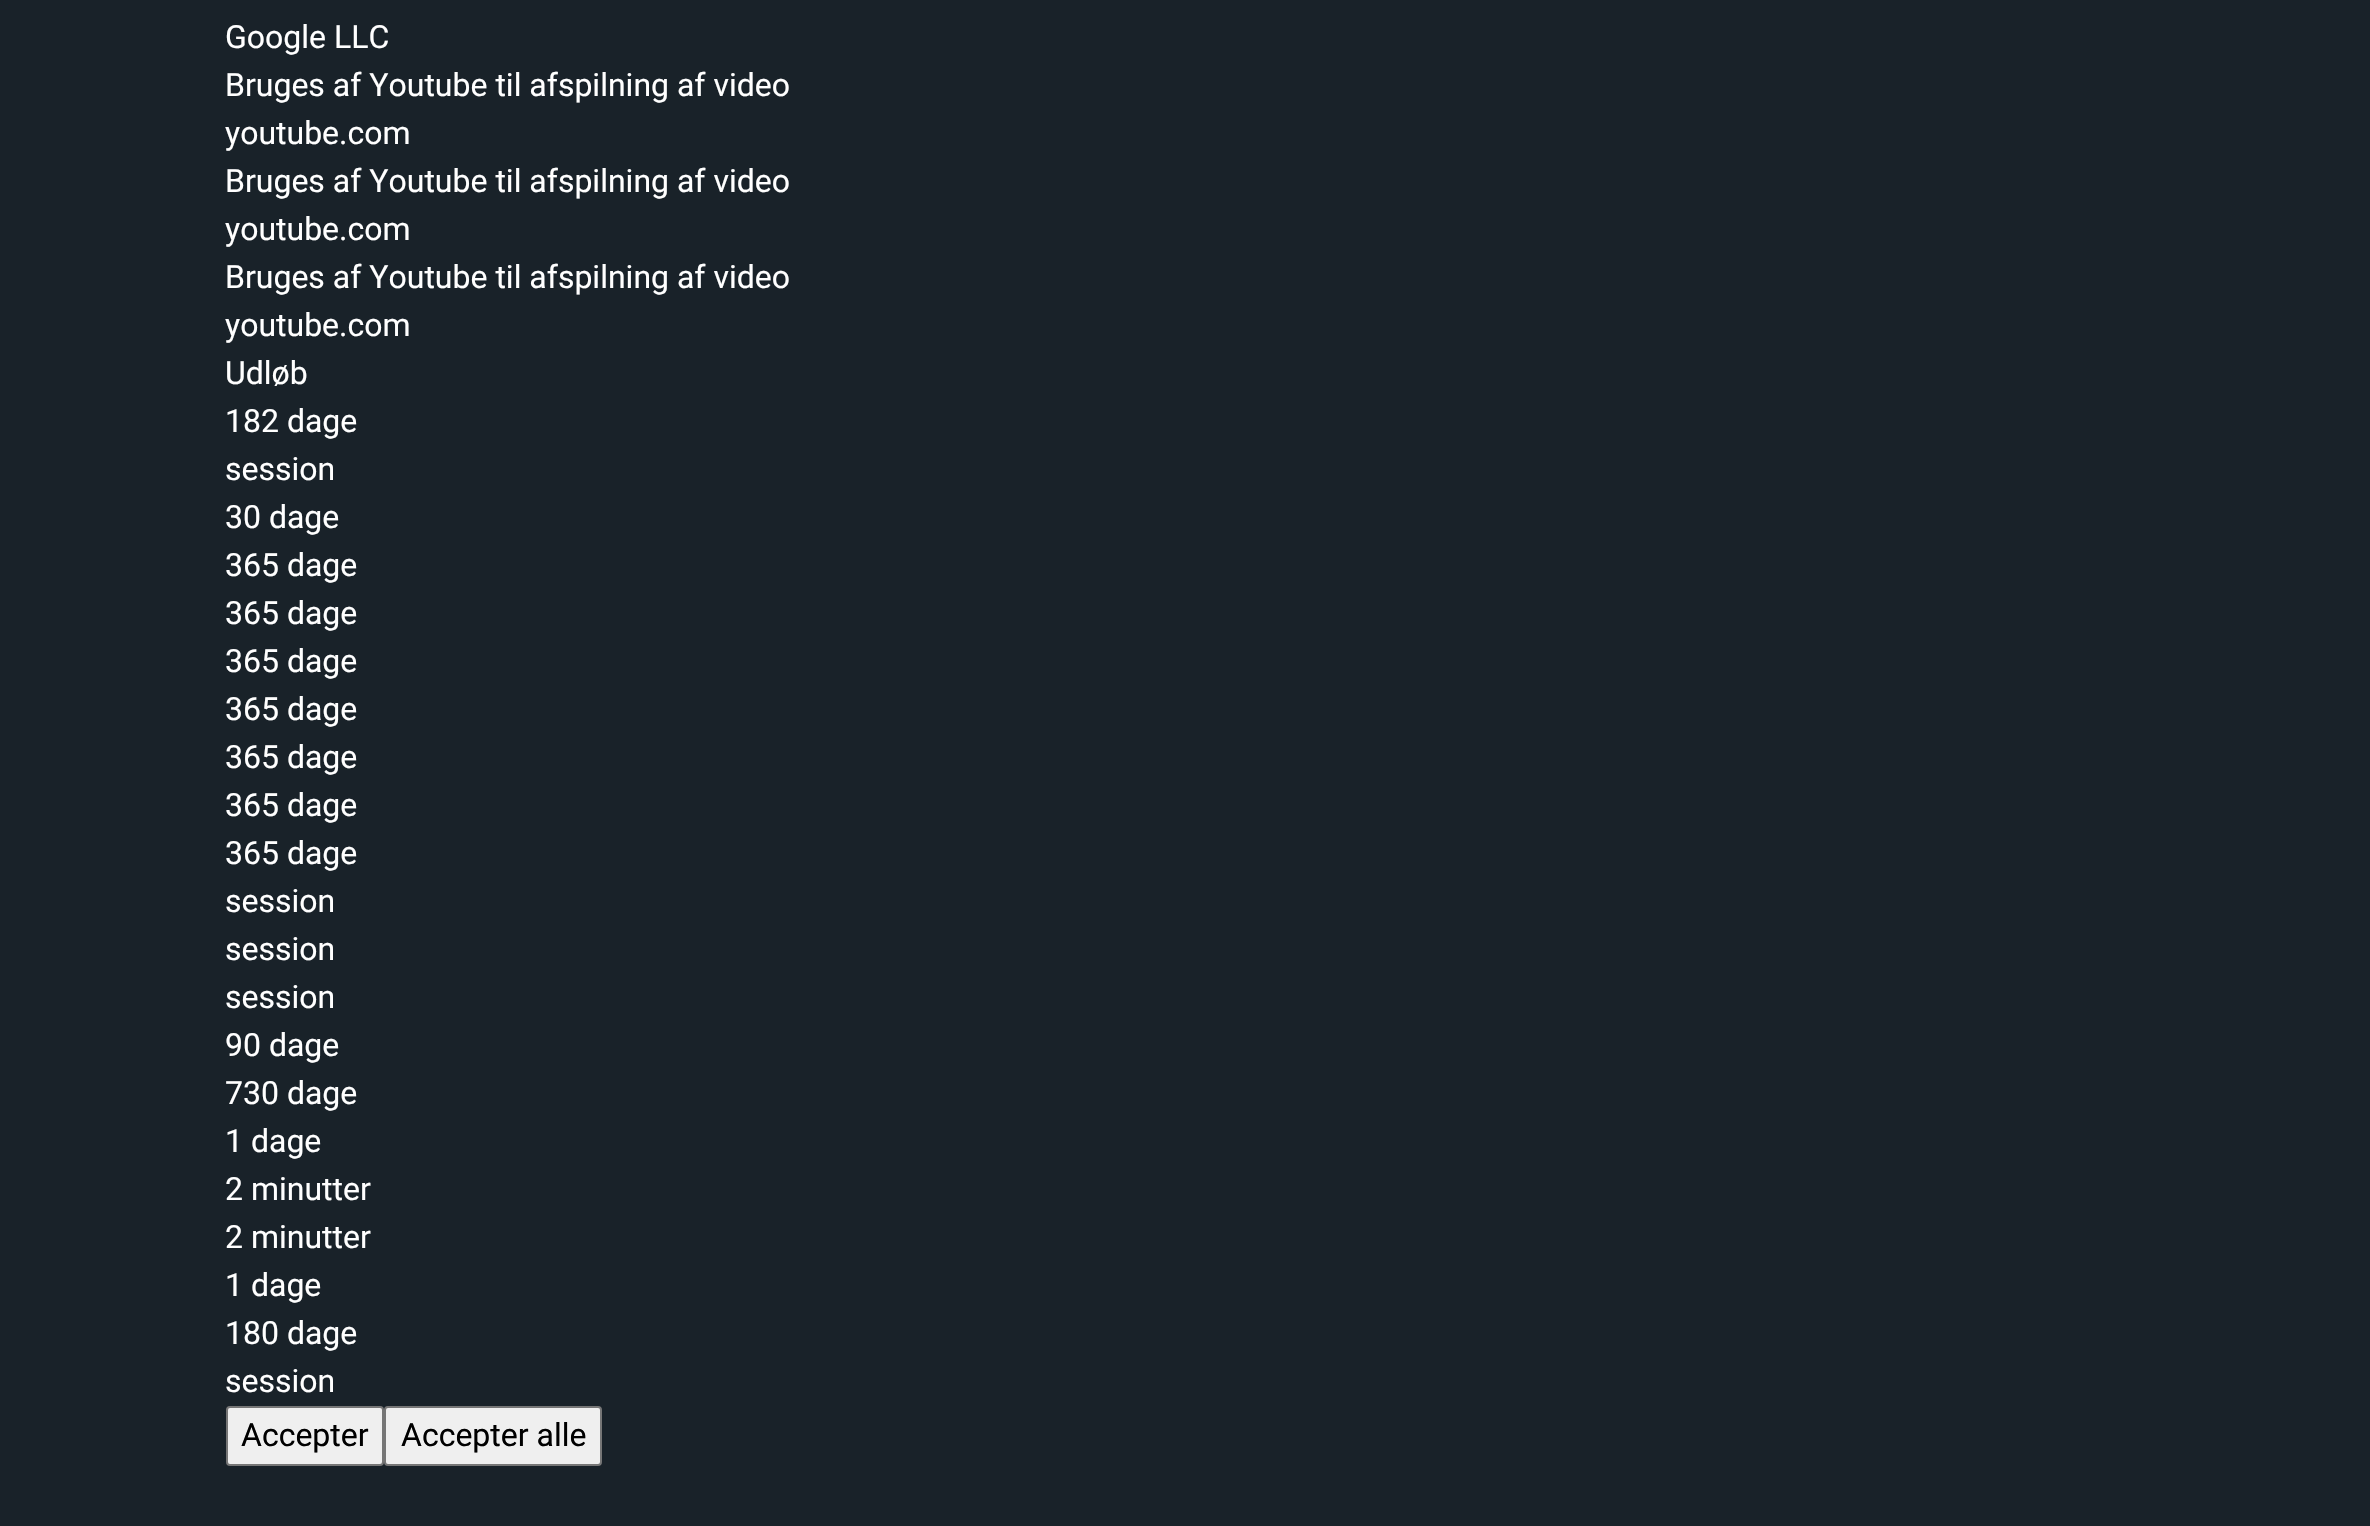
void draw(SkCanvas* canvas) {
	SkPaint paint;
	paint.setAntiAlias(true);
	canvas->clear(0xff192229);
	SkFont f1(fontMgr->matchFamilyStyle("Roboto", SkFontStyle::Normal()), 32);
	f1.setSubpixel(true);
	paint.setColor(0xffffffff);
	canvas->drawString("Google LLC", 225, 48, f1, paint);
	canvas->drawString("Bruges af Youtube til afspilning af video", 225, 96, f1, paint);
	canvas->drawString("youtube.com", 225, 144, f1, paint);
	canvas->drawString("Bruges af Youtube til afspilning af video", 225, 192, f1, paint);
	canvas->drawString("youtube.com", 225, 240, f1, paint);
	canvas->drawString("Bruges af Youtube til afspilning af video", 225, 288, f1, paint);
	canvas->drawString("youtube.com", 225, 336, f1, paint);
	canvas->drawString("Udløb", 225, 384, f1, paint);
	canvas->drawString("182 dage", 225, 432, f1, paint);
	canvas->drawString("session", 225, 480, f1, paint);
	canvas->drawString("30 dage", 225, 528, f1, paint);
	canvas->drawString("365 dage", 225, 576, f1, paint);
	canvas->drawString("365 dage", 225, 624, f1, paint);
	canvas->drawString("365 dage", 225, 672, f1, paint);
	canvas->drawString("365 dage", 225, 720, f1, paint);
	canvas->drawString("365 dage", 225, 768, f1, paint);
	canvas->drawString("365 dage", 225, 816, f1, paint);
	canvas->drawString("365 dage", 225, 864, f1, paint);
	canvas->drawString("session", 225, 912, f1, paint);
	canvas->drawString("session", 225, 960, f1, paint);
	canvas->drawString("session", 225, 1008, f1, paint);
	canvas->drawString("90 dage", 225, 1056, f1, paint);
	canvas->drawString("730 dage", 225, 1104, f1, paint);
	canvas->drawString("1 dage", 225, 1152, f1, paint);
	canvas->drawString("2 minutter", 225, 1200, f1, paint);
	canvas->drawString("2 minutter", 225, 1248, f1, paint);
	canvas->drawString("1 dage", 225, 1296, f1, paint);
	canvas->drawString("180 dage", 225, 1344, f1, paint);
	canvas->drawString("session", 225, 1392, f1, paint);
	paint.setColor(0xffefefef);
	canvas->drawRoundRect(SkRect::MakeXYWH(227, 1407, 156, 58), 3, 3, paint);
	paint.setStroke(true);
	paint.setStrokeWidth(2);
	paint.setColor(0xff767676);
	canvas->drawRoundRect(SkRect::MakeXYWH(227, 1407, 156, 58), 3, 3, paint);
	paint.setStroke(false);
	paint.setColor(0xff000000);
	canvas->drawString("Accepter", 241, 1446, f1, paint);
	paint.setColor(0xffefefef);
	canvas->drawRoundRect(SkRect::MakeXYWH(385, 1407, 216, 58), 3, 3, paint);
	paint.setStroke(true);
	paint.setColor(0xff767676);
	canvas->drawRoundRect(SkRect::MakeXYWH(385, 1407, 216, 58), 3, 3, paint);
	paint.setStroke(false);
	paint.setColor(0xff000000);
	canvas->drawString("Accepter alle", 401, 1446, f1, paint);
}
